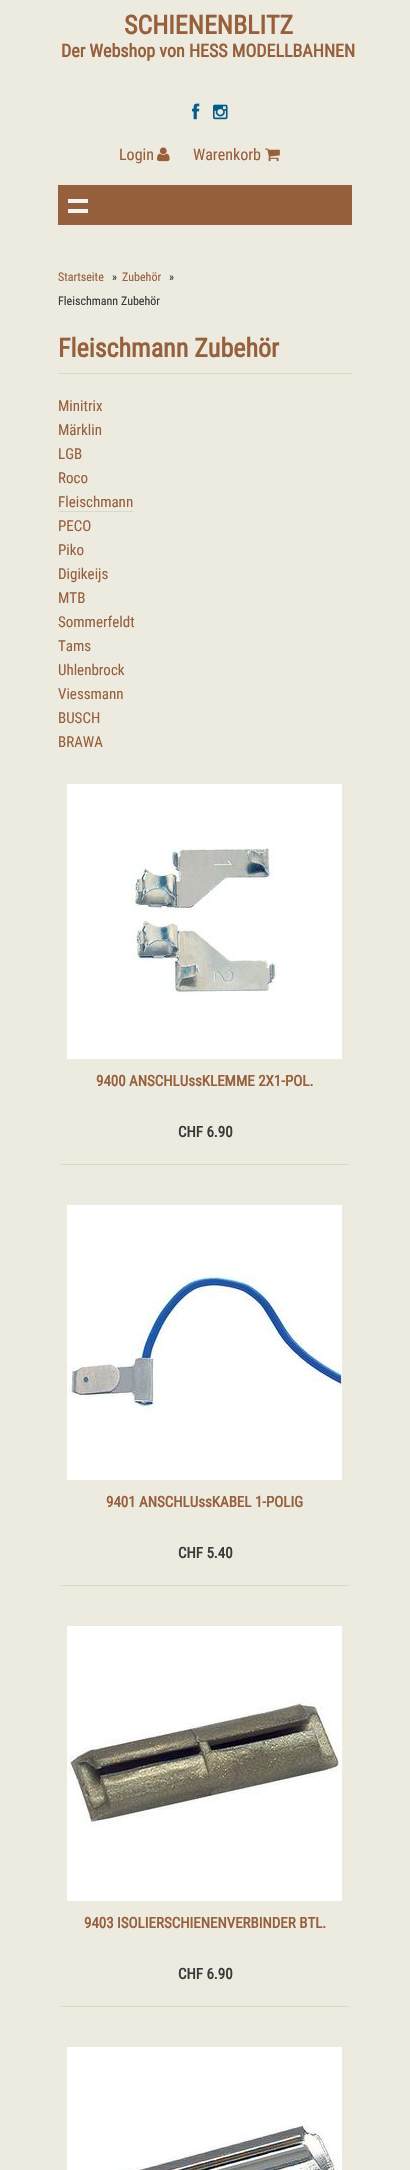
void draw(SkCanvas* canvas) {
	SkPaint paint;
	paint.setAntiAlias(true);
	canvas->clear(0xffedeae0);
	SkFont f1(fontMgr->matchFamilyStyle("Roboto Condensed", SkFontStyle::Bold()), 26);
	f1.setSubpixel(true);
	paint.setColor(0xff97603c);
	canvas->drawString("SCHIENENBLITZ", 124, 34, f1, paint);
	SkFont f2(fontMgr->matchFamilyStyle("Roboto Condensed", SkFontStyle::Bold()), 18);
	f2.setSubpixel(true);
	canvas->drawString("Der Webshop von HESS MODELLBAHNEN", 61, 57, f2, paint);
	canvas->drawImageRect(SkImages::DeferredFromEncodedData(SkData::MakeFromFileName("img1.png")), SkRect::MakeXYWH(192, 103, 8, 17), SkSamplingOptions());
	canvas->drawImageRect(SkImages::DeferredFromEncodedData(SkData::MakeFromFileName("img2.png")), SkRect::MakeXYWH(213, 104, 15, 16), SkSamplingOptions());
	SkFont f3(fontMgr->matchFamilyStyle("Roboto Condensed", SkFontStyle::Normal()), 16);
	f3.setSubpixel(true);
	canvas->drawString("Login", 119, 160, f3, paint);
	canvas->drawImageRect(SkImages::DeferredFromEncodedData(SkData::MakeFromFileName("img3.png")), SkRect::MakeXYWH(157, 147, 13, 15), SkSamplingOptions());
	canvas->drawString("Warenkorb", 193, 160, f3, paint);
	canvas->drawImageRect(SkImages::DeferredFromEncodedData(SkData::MakeFromFileName("img4.png")), SkRect::MakeXYWH(265, 148, 15, 14), SkSamplingOptions());
	canvas->drawRect(SkRect::MakeXYWH(58, 185, 294, 40), paint);
	paint.setColor(0xfff4f4ee);
	canvas->drawRect(SkRect::MakeXYWH(68, 199, 20, 4), paint);
	canvas->drawRect(SkRect::MakeXYWH(68, 209, 20, 4), paint);
	SkFont f4(fontMgr->matchFamilyStyle("Roboto Condensed", SkFontStyle::Normal()), 12);
	f4.setSubpixel(true);
	paint.setColor(0xff97603c);
	canvas->drawString("Startseite", 58, 281, f4, paint);
	paint.setColor(0xff3a3938);
	canvas->drawString("»", 112, 281, f4, paint);
	paint.setColor(0xff97603c);
	canvas->drawString("Zubehör", 122, 281, f4, paint);
	paint.setColor(0xff3a3938);
	canvas->drawString("»", 169, 281, f4, paint);
	canvas->drawString("Fleischmann Zubehör", 58, 305, f4, paint);
	paint.setColor(0xffdbd9c7);
	canvas->drawRect(SkRect::MakeXYWH(58, 373, 294, 1), paint);
	paint.setColor(0xff97603c);
	canvas->drawString("Fleischmann Zubehör", 58, 357, f1, paint);
	SkFont f5(fontMgr->matchFamilyStyle("Roboto Condensed", SkFontStyle::Normal()), 15);
	f5.setSubpixel(true);
	canvas->drawString("Minitrix", 58, 411, f5, paint);
	canvas->drawString("Märklin", 58, 435, f5, paint);
	canvas->drawString("LGB", 58, 459, f5, paint);
	canvas->drawString("Roco", 58, 483, f5, paint);
	canvas->drawString("Fleischmann", 58, 507, f5, paint);
	paint.setColor(0xffdbd9c7);
	canvas->drawRect(SkRect::MakeXYWH(58, 511, 75, 1), paint);
	paint.setColor(0xff97603c);
	canvas->drawString("PECO", 58, 531, f5, paint);
	canvas->drawString("Piko", 58, 555, f5, paint);
	canvas->drawString("Digikeijs", 58, 579, f5, paint);
	canvas->drawString("MTB", 58, 603, f5, paint);
	canvas->drawString("Sommerfeldt", 58, 627, f5, paint);
	canvas->drawString("Tams", 58, 651, f5, paint);
	canvas->drawString("Uhlenbrock", 58, 675, f5, paint);
	canvas->drawString("Viessmann", 58, 699, f5, paint);
	canvas->drawString("BUSCH", 58, 723, f5, paint);
	canvas->drawString("BRAWA", 58, 747, f5, paint);
	paint.setColor(0xffdbd9c7);
	canvas->drawRect(SkRect::MakeXYWH(61, 1164, 288, 1), paint);
	canvas->drawImageRect(SkImages::DeferredFromEncodedData(SkData::MakeFromFileName("img5.png")), SkRect::MakeXYWH(67, 784, 275, 275), SkSamplingOptions());
	SkFont f6(fontMgr->matchFamilyStyle("Roboto Condensed", SkFontStyle::Bold()), 15);
	f6.setSubpixel(true);
	paint.setColor(0xff97603c);
	canvas->drawString("9400 ANSCHLUssKLEMME 2X1-POL.", 96, 1086, f6, paint);
	paint.setColor(0xff3a3938);
	canvas->drawString("CHF 6.90", 178, 1137, f6, paint);
	paint.setColor(0xffdbd9c7);
	canvas->drawRect(SkRect::MakeXYWH(61, 1585, 288, 1), paint);
	canvas->drawImageRect(SkImages::DeferredFromEncodedData(SkData::MakeFromFileName("img6.png")), SkRect::MakeXYWH(67, 1205, 275, 275), SkSamplingOptions());
	paint.setColor(0xff97603c);
	canvas->drawString("9401 ANSCHLUssKABEL 1-POLIG", 106, 1507, f6, paint);
	paint.setColor(0xff3a3938);
	canvas->drawString("CHF 5.40", 178, 1558, f6, paint);
	paint.setColor(0xffdbd9c7);
	canvas->drawRect(SkRect::MakeXYWH(61, 2006, 288, 1), paint);
	canvas->drawImageRect(SkImages::DeferredFromEncodedData(SkData::MakeFromFileName("img7.png")), SkRect::MakeXYWH(67, 1626, 275, 275), SkSamplingOptions());
	paint.setColor(0xff97603c);
	canvas->drawString("9403 ISOLIERSCHIENENVERBINDER BTL.", 84, 1928, f6, paint);
	paint.setColor(0xff3a3938);
	canvas->drawString("CHF 6.90", 178, 1979, f6, paint);
	canvas->drawImageRect(SkImages::DeferredFromEncodedData(SkData::MakeFromFileName("img8.png")), SkRect::MakeXYWH(67, 2047, 275, 123), SkSamplingOptions());
}
